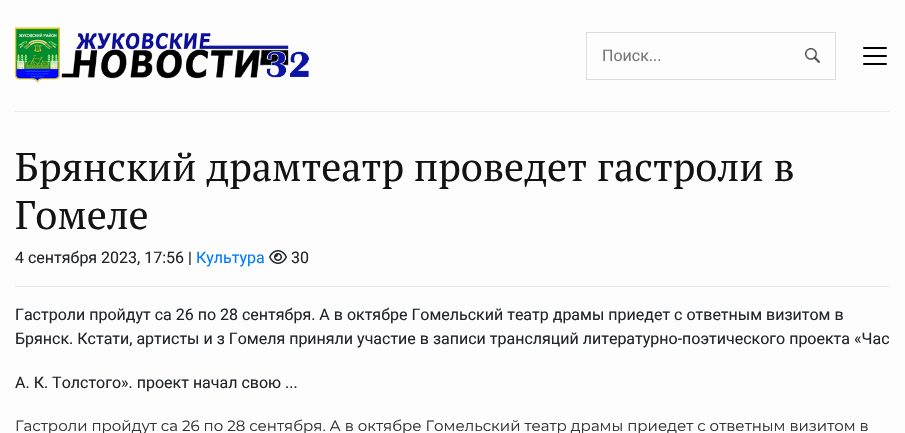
void draw(SkCanvas* canvas) {
	SkPaint paint;
	paint.setAntiAlias(true);
	canvas->clear(0xfffdfdfd);
	paint.setColor(0xffececec);
	canvas->drawRect(SkRect::MakeXYWH(15, 111, 875, 1), paint);
	canvas->drawImageRect(SkImages::DeferredFromEncodedData(SkData::MakeFromFileName("img1.png")), SkRect::MakeXYWH(15, 27, 294, 56), SkSamplingOptions());
	canvas->drawImageRect(SkImages::DeferredFromEncodedData(SkData::MakeFromFileName("img2.png")), SkRect::MakeXYWH(805, 48, 15, 15), SkSamplingOptions());
	paint.setStroke(true);
	paint.setStrokeWidth(1);
	paint.setColor(0xffdddddd);
	canvas->drawRect(SkRect::MakeXYWH(586.5, 32.5, 249, 47), paint);
	SkFont f1(fontMgr->matchFamilyStyle("Roboto", SkFontStyle::Normal()), 16);
	f1.setSubpixel(true);
	paint.setStroke(false);
	paint.setColor(0xff757575);
	canvas->drawString("Поиск...", 602, 61, f1, paint);
	canvas->drawImageRect(SkImages::DeferredFromEncodedData(SkData::MakeFromFileName("img3.png")), SkRect::MakeXYWH(863, 47, 24, 18), SkSamplingOptions());
	SkFont f2(fontMgr->matchFamilyStyle("PT Serif", SkFontStyle::Normal()), 40);
	f2.setSubpixel(true);
	paint.setColor(0xff131313);
	canvas->drawString("Брянский драмтеатр проведет гастроли в", 15, 181, f2, paint);
	canvas->drawString("Гомеле", 15, 229, f2, paint);
	paint.setColor(0xff212529);
	canvas->drawString("4 сентября 2023, 17:56 |", 15, 263, f1, paint);
	paint.setColor(0xff007bff);
	canvas->drawString("Культура", 196, 263, f1, paint);
	canvas->drawImageRect(SkImages::DeferredFromEncodedData(SkData::MakeFromFileName("img4.png")), SkRect::MakeXYWH(269, 250, 18, 14), SkSamplingOptions());
	paint.setColor(0xff212529);
	canvas->drawString("30", 291, 263, f1, paint);
	paint.setColor(0xffe4e4e4);
	canvas->drawRect(SkRect::MakeXYWH(15, 286, 875, 1), paint);
	paint.setColor(0xff212529);
	canvas->drawString("Гастроли пройдут са 26 по 28 сентября. А в октябре Гомельский театр драмы приедет с ответным визитом в", 15, 320, f1, paint);
	canvas->drawString("Брянск. Кстати, артисты и з Гомеля приняли участие в записи трансляций литературно-поэтического проекта «Час", 15, 344, f1, paint);
	canvas->drawString("А. К. Толстого». проект начал свою ...", 15, 388, f1, paint);
	SkFont f3(fontMgr->matchFamilyStyle("Montserrat", SkFontStyle::Normal()), 15);
	f3.setSubpixel(true);
	paint.setColor(0xff333333);
	canvas->drawString("Гастроли пройдут са 26 по 28 сентября. А в октябре Гомельский театр драмы приедет с ответным визитом в", 15, 431, f3, paint);
}
